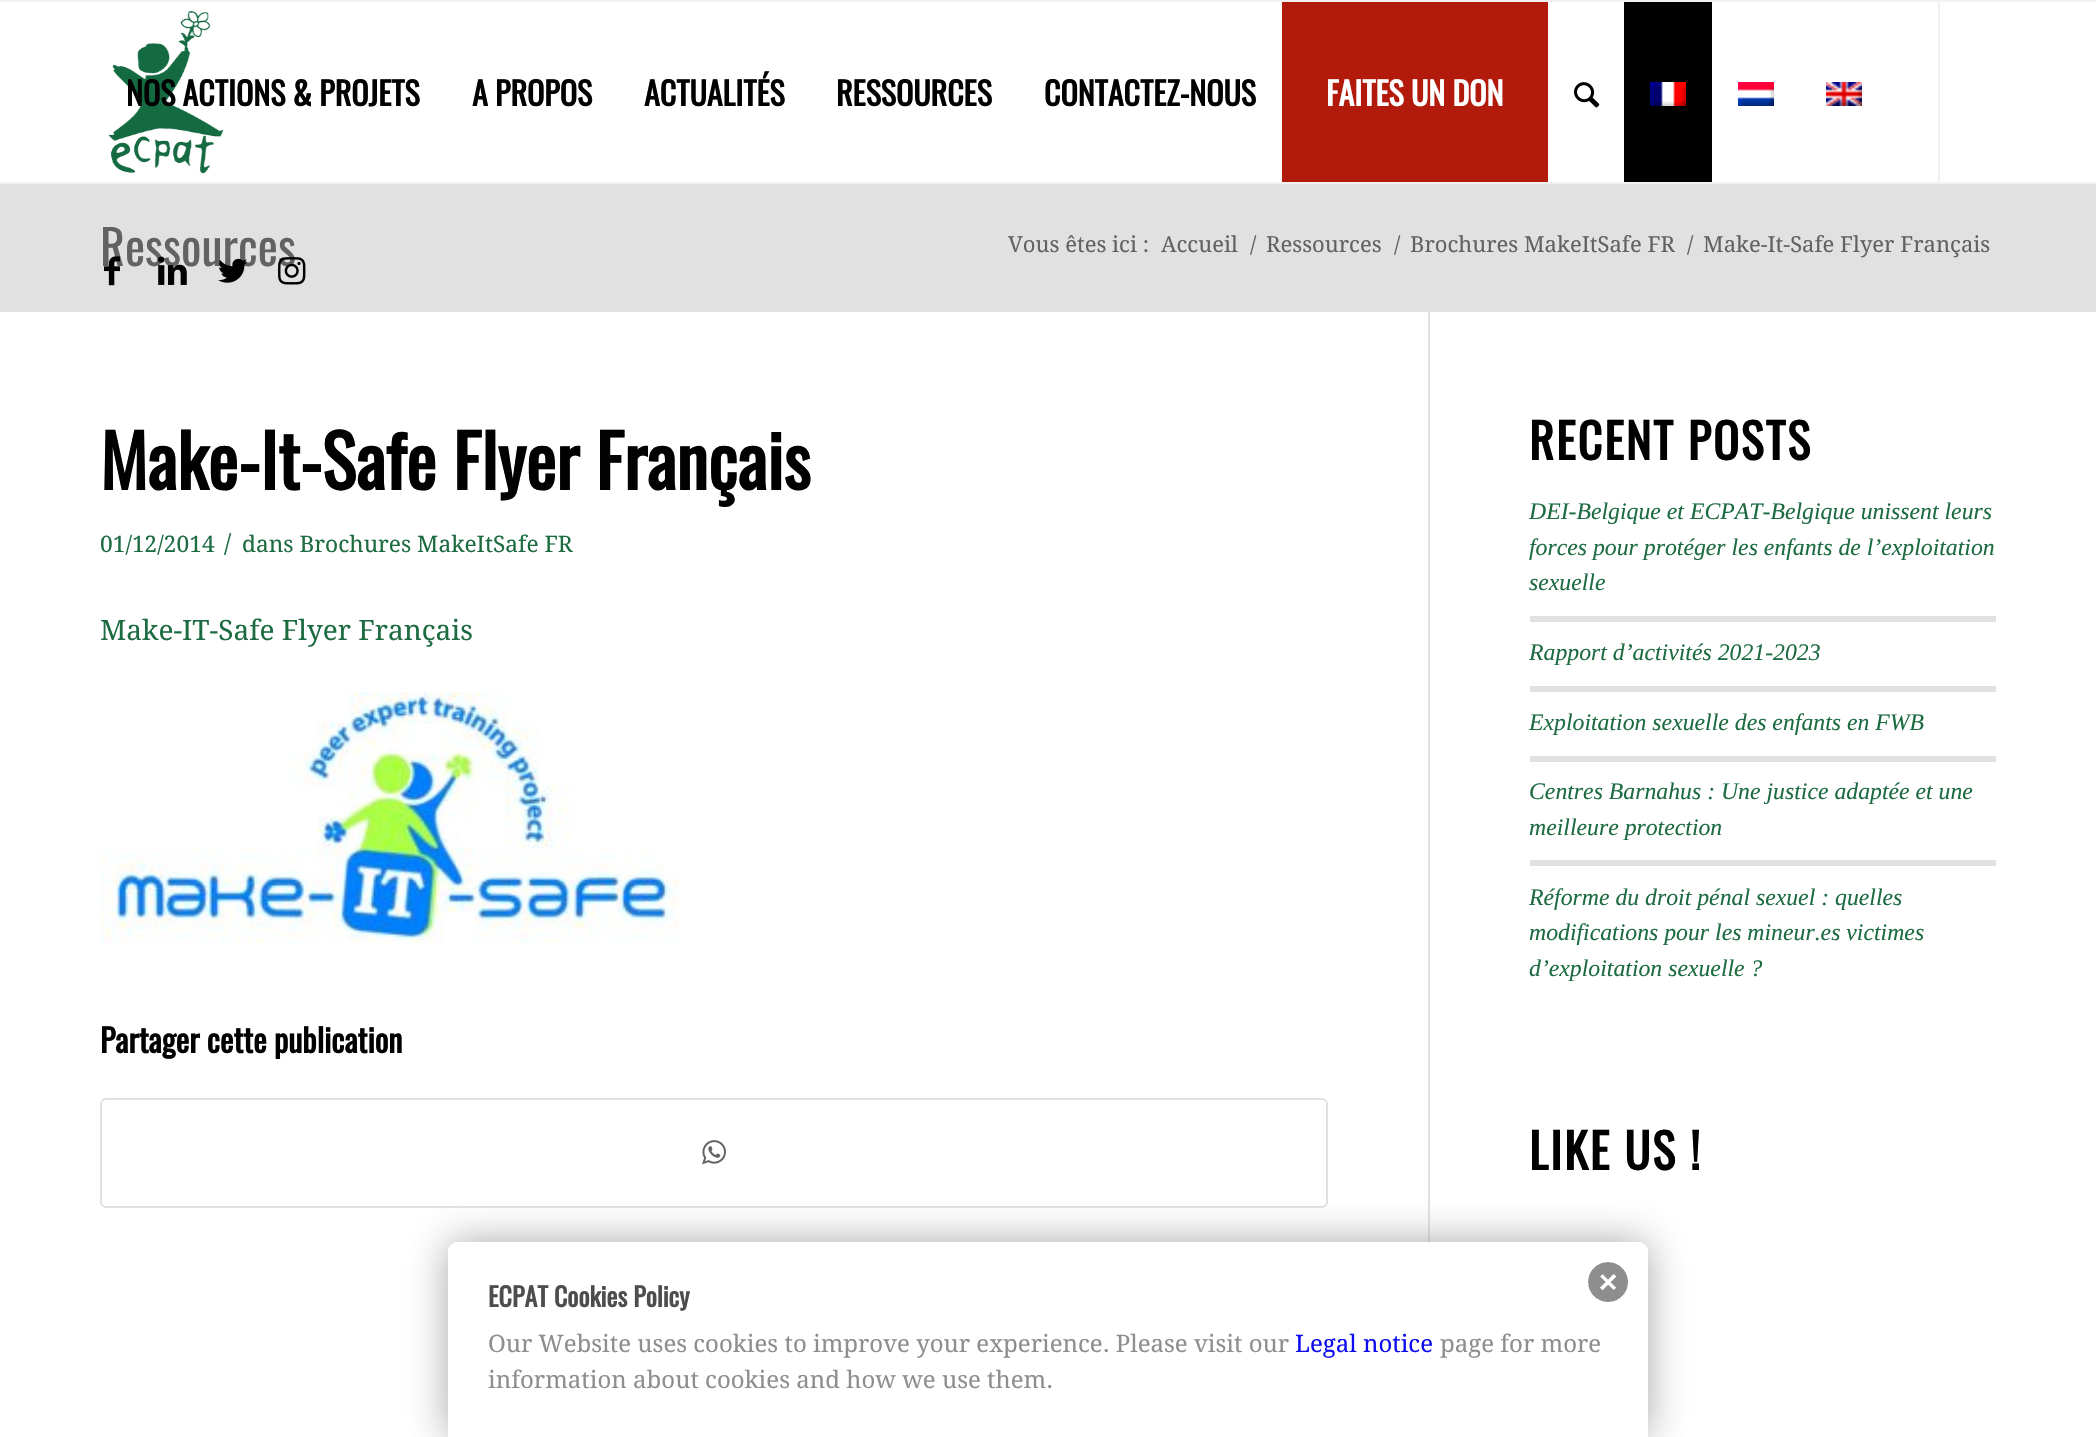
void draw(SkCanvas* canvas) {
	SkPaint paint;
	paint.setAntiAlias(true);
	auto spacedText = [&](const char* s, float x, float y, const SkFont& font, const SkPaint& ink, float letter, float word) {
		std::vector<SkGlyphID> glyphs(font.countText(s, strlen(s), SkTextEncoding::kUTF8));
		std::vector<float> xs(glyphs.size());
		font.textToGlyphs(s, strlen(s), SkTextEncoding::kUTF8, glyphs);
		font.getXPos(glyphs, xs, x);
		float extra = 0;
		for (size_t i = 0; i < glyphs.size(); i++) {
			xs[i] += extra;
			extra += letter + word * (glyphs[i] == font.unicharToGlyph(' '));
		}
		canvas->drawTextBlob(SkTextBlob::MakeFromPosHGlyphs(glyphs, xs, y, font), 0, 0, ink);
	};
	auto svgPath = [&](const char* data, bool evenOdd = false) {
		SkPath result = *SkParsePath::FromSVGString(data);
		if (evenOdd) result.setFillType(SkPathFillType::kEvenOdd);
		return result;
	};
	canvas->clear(0xffffffff);
	paint.setColor(0xfff1f1f1);
	canvas->drawRect(SkRect::MakeXYWH(0, 0, 2096, 2), paint);
	canvas->drawRect(SkRect::MakeXYWH(0, 182, 2096, 2), paint);
	canvas->drawImageRect(SkImages::DeferredFromEncodedData(SkData::MakeFromFileName("img1.png")), SkRect::MakeXYWH(108, 11, 116, 163), SkSamplingOptions());
	canvas->drawRect(SkRect::MakeXYWH(1938, 2, 2, 180), paint);
	SkFont f1(fontMgr->matchFamilyStyle("Oswald", SkFontStyle::Bold()), 32);
	f1.setSubpixel(true);
	paint.setColor(0xff010101);
	canvas->drawString("NOS ACTIONS & PROJETS", 126, 106, f1, paint);
	canvas->drawString("A PROPOS", 472, 106, f1, paint);
	canvas->drawString("ACTUALITÉS", 644, 106, f1, paint);
	canvas->drawString("RESSOURCES", 836, 106, f1, paint);
	canvas->drawString("CONTACTEZ-NOUS", 1044, 106, f1, paint);
	paint.setColor(0xffb21b0b);
	canvas->drawRect(SkRect::MakeXYWH(1282, 2, 266, 180), paint);
	paint.setColor(0xffffffff);
	canvas->drawString("FAITES UN DON", 1326, 106, f1, paint);
	canvas->drawImageRect(SkImages::DeferredFromEncodedData(SkData::MakeFromFileName("img2.png")), SkRect::MakeXYWH(1574, 82, 26, 26), SkSamplingOptions());
	paint.setColor(0xff010101);
	canvas->drawRect(SkRect::MakeXYWH(1624, 2, 88, 180), paint);
	canvas->drawImageRect(SkImages::DeferredFromEncodedData(SkData::MakeFromFileName("img3.png")), SkRect::MakeXYWH(1650, 82, 36, 24), SkSamplingOptions());
	canvas->drawImageRect(SkImages::DeferredFromEncodedData(SkData::MakeFromFileName("img4.png")), SkRect::MakeXYWH(1738, 82, 36, 24), SkSamplingOptions());
	canvas->drawImageRect(SkImages::DeferredFromEncodedData(SkData::MakeFromFileName("img5.png")), SkRect::MakeXYWH(1826, 82, 36, 24), SkSamplingOptions());
	paint.setColor(0xffe1e1e1);
	canvas->drawRect(SkRect::MakeXYWH(0, 184, 2096, 128), paint);
	SkFont f2(fontMgr->matchFamilyStyle("Oswald", SkFontStyle::Normal()), 48);
	f2.setSubpixel(true);
	paint.setColor(0xff626262);
	canvas->drawString("Ressources", 100, 266, f2, paint);
	canvas->drawImageRect(SkImages::DeferredFromEncodedData(SkData::MakeFromFileName("img6.png")), SkRect::MakeXYWH(104, 256, 16, 30), SkSamplingOptions());
	canvas->drawImageRect(SkImages::DeferredFromEncodedData(SkData::MakeFromFileName("img7.png")), SkRect::MakeXYWH(158, 256, 29, 29), SkSamplingOptions());
	canvas->drawImageRect(SkImages::DeferredFromEncodedData(SkData::MakeFromFileName("img8.png")), SkRect::MakeXYWH(218, 258, 30, 25), SkSamplingOptions());
	canvas->drawImageRect(SkImages::DeferredFromEncodedData(SkData::MakeFromFileName("img9.png")), SkRect::MakeXYWH(278, 257, 28, 28), SkSamplingOptions());
	SkFont f3(fontMgr->matchFamilyStyle("Droid Serif", SkFontStyle::Normal()), 22);
	f3.setSubpixel(true);
	canvas->drawString("Vous êtes ici :", 1008, 252, f3, paint);
	canvas->drawString("Accueil", 1161, 252, f3, paint);
	canvas->drawString("/", 1250, 252, f3, paint);
	canvas->drawString("Ressources", 1266, 252, f3, paint);
	canvas->drawString("/", 1394, 252, f3, paint);
	canvas->drawString("Brochures MakeItSafe FR", 1410, 252, f3, paint);
	canvas->drawString("/", 1687, 252, f3, paint);
	canvas->drawString("Make-It-Safe Flyer Français", 1703, 252, f3, paint);
	paint.setColor(0xffe1e1e1);
	canvas->drawRect(SkRect::MakeXYWH(1428, 312, 2, 1125), paint);
	SkFont f4(fontMgr->matchFamilyStyle("Oswald", SkFontStyle::Bold()), 72);
	f4.setSubpixel(true);
	paint.setColor(0xff010101);
	canvas->drawString("Make-It-Safe Flyer Français", 100, 490, f4, paint);
	SkFont f5(fontMgr->matchFamilyStyle("Droid Serif", SkFontStyle::Normal()), 22.7);
	f5.setSubpixel(true);
	paint.setColor(0xff1c6b41);
	canvas->drawString("01/12/2014", 100, 552, f5, paint);
	SkFont f6(fontMgr->matchFamilyStyle("Droid Serif", SkFontStyle::Normal()), 25);
	f6.setSubpixel(true);
	canvas->drawString("/", 224, 552, f6, paint);
	canvas->drawString("dans Brochures MakeItSafe FR", 242, 552, f5, paint);
	SkFont f7(fontMgr->matchFamilyStyle("Droid Serif", SkFontStyle::Normal()), 28);
	f7.setSubpixel(true);
	canvas->drawString("Make-IT-Safe Flyer Français", 100, 640, f7, paint);
	canvas->drawImageRect(SkImages::DeferredFromEncodedData(SkData::MakeFromFileName("img10.png")), SkRect::MakeXYWH(100, 692, 581, 252), SkSamplingOptions());
	paint.setColor(0xff010101);
	canvas->drawString("Partager cette publication", 100, 1053, f1, paint);
	paint.setStroke(true);
	paint.setStrokeWidth(2);
	paint.setColor(0xffe1e1e1);
	canvas->drawRoundRect(SkRect::MakeXYWH(101, 1099, 1226, 108), 5, 5, paint);
	canvas->drawImageRect(SkImages::DeferredFromEncodedData(SkData::MakeFromFileName("img11.png")), SkRect::MakeXYWH(702, 1140, 24, 25), SkSamplingOptions());
	SkFont f8(fontMgr->matchFamilyStyle("Oswald", SkFontStyle::Bold()), 48);
	f8.setSubpixel(true);
	paint.setStroke(false);
	paint.setColor(0xff010101);
	spacedText("RECENT POSTS", 1529, 460, f8, paint, 2, 0);
	SkFont f9(fontMgr->matchFamilyStyle("Liberation Serif", SkFontStyle::Italic()), 23.75);
	f9.setSubpixel(true);
	paint.setColor(0xff1c6b41);
	canvas->drawString("DEI-Belgique et ECPAT-Belgique unissent leurs", 1529, 519, f9, paint);
	canvas->drawString("forces pour protéger les enfants de l’exploitation", 1529, 555, f9, paint);
	canvas->drawString("sexuelle", 1529, 590, f9, paint);
	paint.setColor(0xffe1e1e1);
	canvas->drawRect(SkRect::MakeXYWH(1530, 616, 466, 6), paint);
	paint.setColor(0xff1c6b41);
	canvas->drawString("Rapport d’activités 2021-2023", 1529, 660, f9, paint);
	paint.setColor(0xffe1e1e1);
	canvas->drawRect(SkRect::MakeXYWH(1530, 686, 466, 6), paint);
	paint.setColor(0xff1c6b41);
	canvas->drawString("Exploitation sexuelle des enfants en FWB", 1529, 730, f9, paint);
	paint.setColor(0xffe1e1e1);
	canvas->drawRect(SkRect::MakeXYWH(1530, 756, 466, 6), paint);
	paint.setColor(0xff1c6b41);
	canvas->drawString("Centres Barnahus : Une justice adaptée et une", 1529, 799, f9, paint);
	canvas->drawString("meilleure protection", 1529, 835, f9, paint);
	paint.setColor(0xffe1e1e1);
	canvas->drawRect(SkRect::MakeXYWH(1530, 860, 466, 6), paint);
	paint.setColor(0xff1c6b41);
	canvas->drawString("Réforme du droit pénal sexuel : quelles", 1529, 905, f9, paint);
	canvas->drawString("modifications pour les mineur.es victimes", 1529, 940, f9, paint);
	canvas->drawString("d’exploitation sexuelle ?", 1529, 976, f9, paint);
	paint.setColor(0xff010101);
	spacedText("LIKE US !", 1529, 1170, f8, paint, 2, 0);
	canvas->save();
	canvas->clipPath(svgPath("M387 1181H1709V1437H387ZM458 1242H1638C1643.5 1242 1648 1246.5 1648 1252V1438H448V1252C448 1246.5 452.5 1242 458 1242Z", true), true);
	paint.setColor(0xf2a1a1a1);
	paint.setMaskFilter(SkMaskFilter::MakeBlur(kNormal_SkBlurStyle, 20));
	canvas->drawRoundRect(SkRect::MakeXYWH(448, 1242, 1200, 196), 10, 10, paint);
	paint.setMaskFilter(nullptr);
	canvas->restore();
	paint.setColor(0xf2ffffff);
	canvas->drawPath(svgPath("M458 1242H1638C1643.5 1242 1648 1246.5 1648 1252V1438H448V1252C448 1246.5 452.5 1242 458 1242Z"), paint);
	SkFont f10(fontMgr->matchFamilyStyle("Oswald", SkFontStyle::Bold()), 26);
	f10.setSubpixel(true);
	paint.setColor(0xff4d4d4d);
	canvas->drawString("ECPAT Cookies Policy", 488, 1307, f10, paint);
	canvas->drawImageRect(SkImages::DeferredFromEncodedData(SkData::MakeFromFileName("img12.png")), SkRect::MakeXYWH(1588, 1262, 40, 40), SkSamplingOptions());
	SkFont f11(fontMgr->matchFamilyStyle("Droid Serif", SkFontStyle::Normal()), 24);
	f11.setSubpixel(true);
	paint.setColor(0xff8e8e8e);
	canvas->drawString("Our Website uses cookies to improve your experience. Please visit our", 488, 1352, f11, paint);
	paint.setColor(0xff0d0def);
	canvas->drawString("Legal notice", 1295, 1352, f11, paint);
	paint.setColor(0xff8e8e8e);
	canvas->drawString("page for more", 1440, 1352, f11, paint);
	canvas->drawString("information about cookies and how we use them.", 488, 1388, f11, paint);
}
